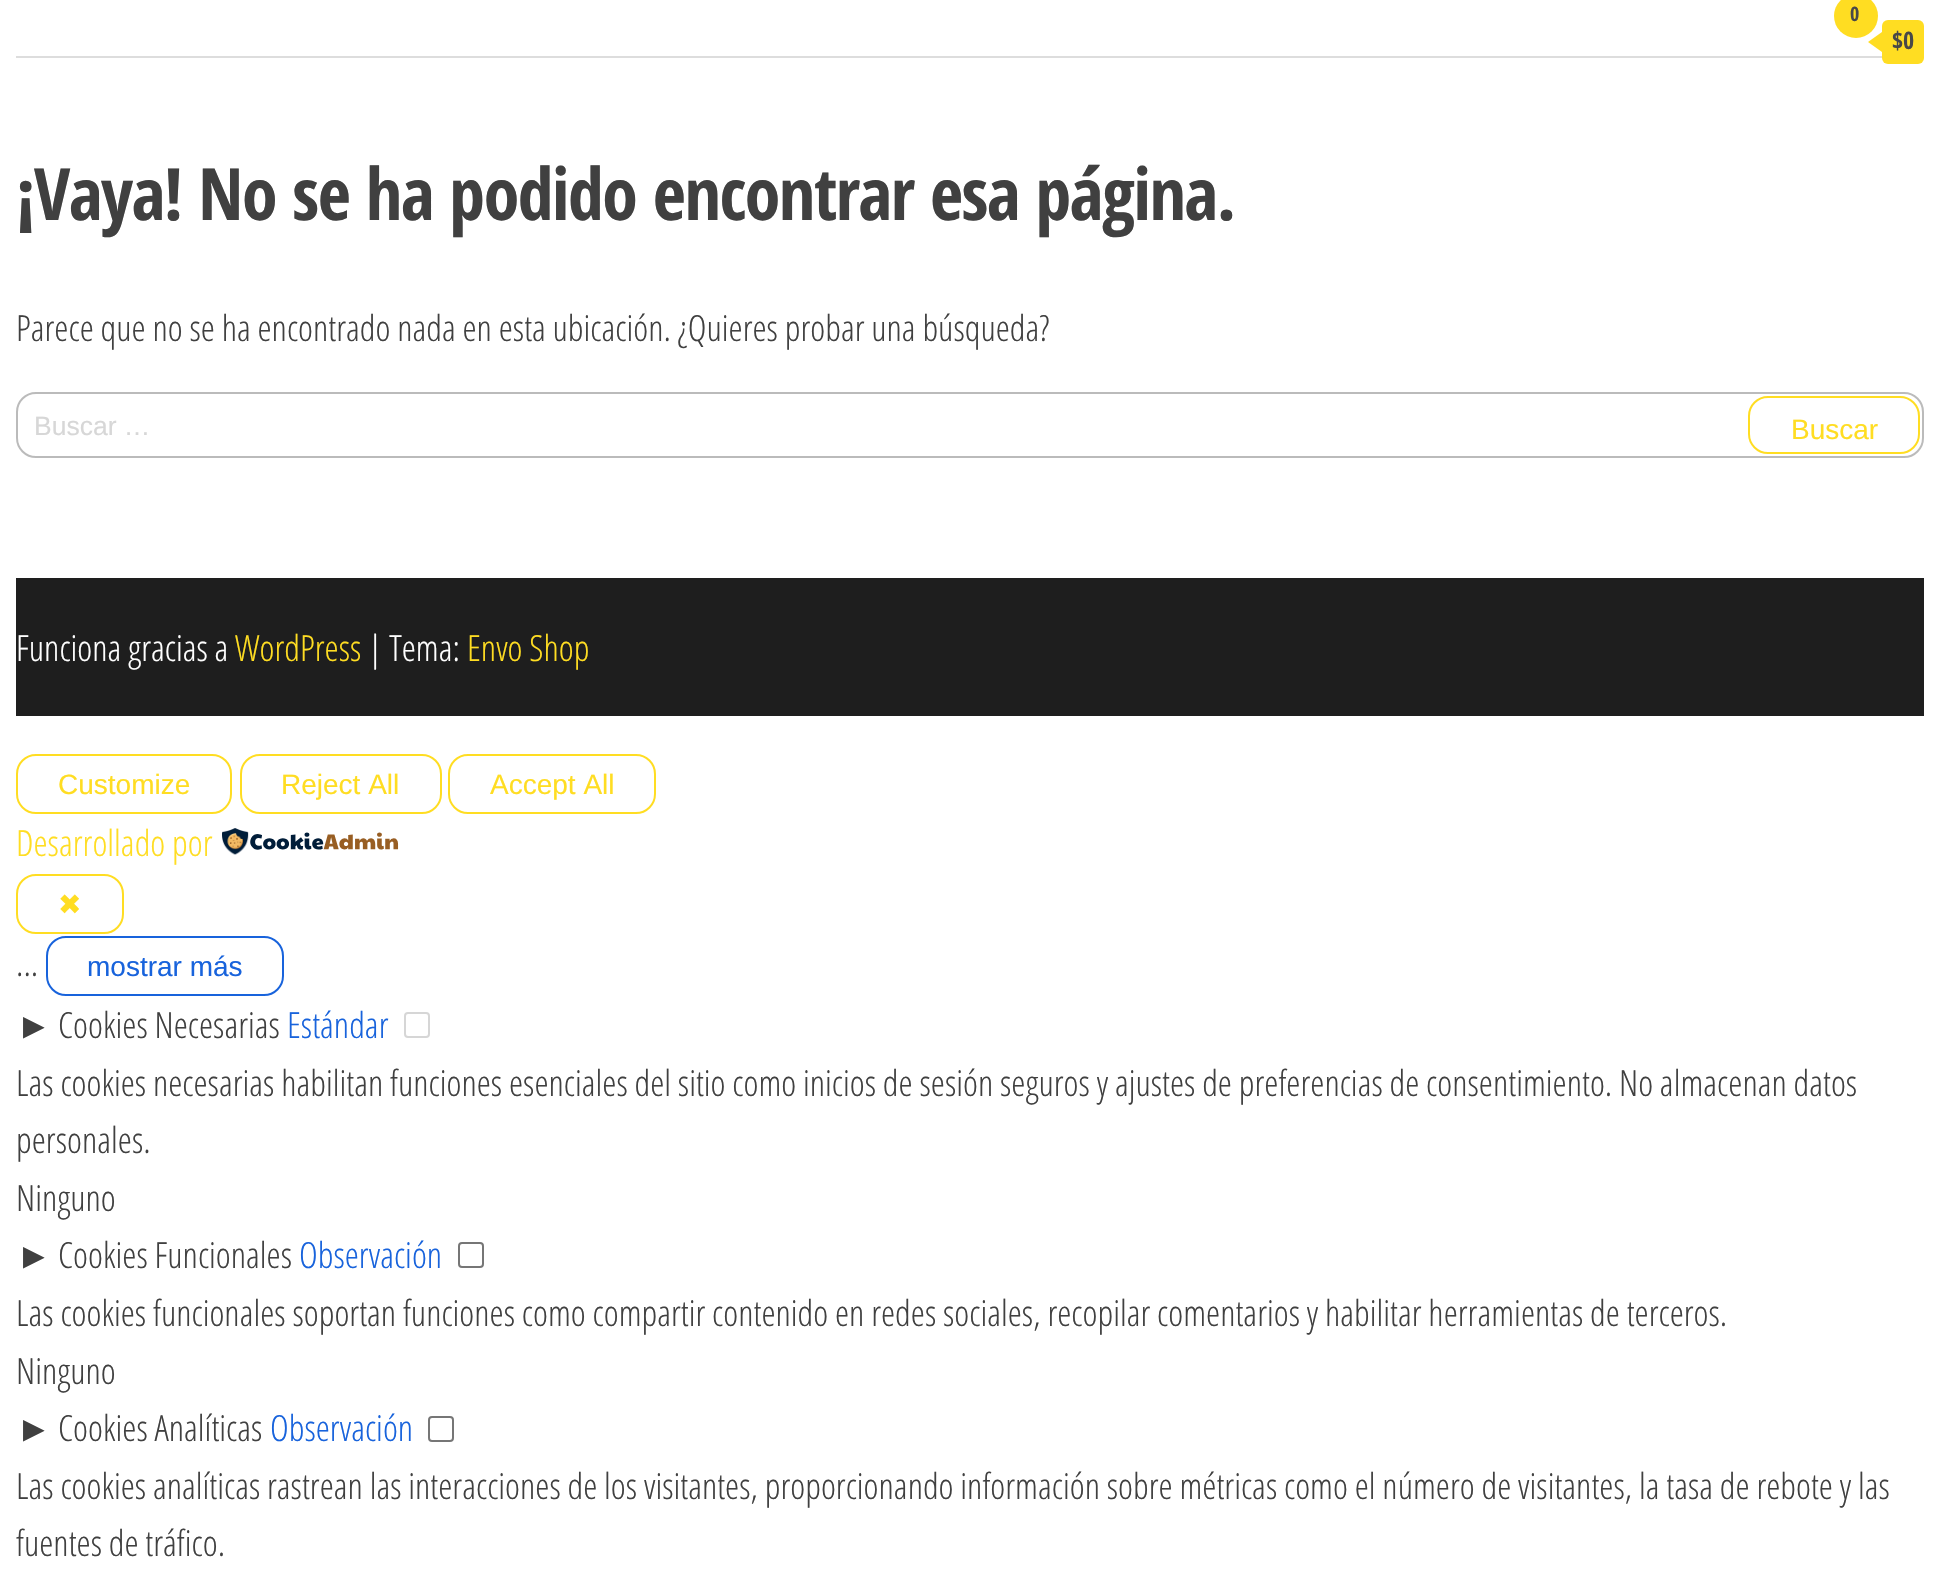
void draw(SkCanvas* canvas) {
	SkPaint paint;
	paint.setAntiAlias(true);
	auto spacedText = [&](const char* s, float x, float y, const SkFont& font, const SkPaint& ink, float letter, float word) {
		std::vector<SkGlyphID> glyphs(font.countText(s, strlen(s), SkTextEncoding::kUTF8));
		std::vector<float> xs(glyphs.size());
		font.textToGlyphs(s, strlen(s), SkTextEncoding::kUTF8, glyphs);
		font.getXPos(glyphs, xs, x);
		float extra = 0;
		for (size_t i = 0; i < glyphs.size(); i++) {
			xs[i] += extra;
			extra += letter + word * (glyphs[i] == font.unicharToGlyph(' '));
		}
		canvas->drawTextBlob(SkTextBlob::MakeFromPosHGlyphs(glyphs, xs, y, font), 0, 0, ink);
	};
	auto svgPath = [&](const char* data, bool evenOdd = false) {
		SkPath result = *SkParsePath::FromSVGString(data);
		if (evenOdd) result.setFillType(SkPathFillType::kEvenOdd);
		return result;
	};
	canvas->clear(0xffffffff);
	paint.setColor(0xffdddddd);
	canvas->drawRect(SkRect::MakeXYWH(16, 56, 1866, 2), paint);
	paint.setColor(0xffffdd22);
	canvas->drawCircle(1856, 16, 22, paint);
	SkFont f1(fontMgr->matchFamilyStyle("Open Sans Condensed", SkFontStyle::Bold()), 20);
	f1.setSubpixel(true);
	paint.setColor(0xff484848);
	canvas->drawString("0", 1850, 21, f1, paint);
	paint.setColor(0xffffdd22);
	canvas->drawRoundRect(SkRect::MakeXYWH(1882, 20, 42, 44), 6, 6, paint);
	canvas->drawPath(svgPath("M1882 32V52L1868 42Z"), paint);
	SkFont f2(fontMgr->matchFamilyStyle("Open Sans Condensed", SkFontStyle::Bold()), 24);
	f2.setSubpixel(true);
	paint.setColor(0xff484848);
	canvas->drawString("$0", 1892, 49, f2, paint);
	SkFont f3(fontMgr->matchFamilyStyle("Open Sans Condensed", SkFontStyle::Bold()), 72);
	f3.setSubpixel(true);
	paint.setColor(0xff404040);
	spacedText("¡Vaya! No se ha podido encontrar esa página.", 16, 220, f3, paint, -1.45, 0);
	SkFont f4(fontMgr->matchFamilyStyle("Open Sans Condensed", SkFontStyle(300, SkFontStyle::kNormal_Width, SkFontStyle::kUpright_Slant)), 36);
	f4.setSubpixel(true);
	canvas->drawString("Parece que no se ha encontrado nada en esta ubicación. ¿Quieres probar una búsqueda?", 16, 341, f4, paint);
	paint.setStroke(true);
	paint.setStrokeWidth(2);
	paint.setColor(0xffbbbbbb);
	canvas->drawRoundRect(SkRect::MakeXYWH(17, 393, 1906, 64), 19, 19, paint);
	SkFont f5(fontMgr->matchFamilyStyle("Liberation Sans", SkFontStyle::Normal()), 26.5);
	f5.setSubpixel(true);
	paint.setStroke(false);
	paint.setColor(0xffd7d7d7);
	canvas->drawString("Buscar …", 34, 435, f5, paint);
	paint.setStroke(true);
	paint.setColor(0xffffdd22);
	canvas->drawRoundRect(SkRect::MakeXYWH(1749, 397, 170, 56), 19, 19, paint);
	SkFont f6(fontMgr->matchFamilyStyle("Liberation Sans", SkFontStyle::Normal()), 28);
	f6.setSubpixel(true);
	paint.setStroke(false);
	canvas->drawString("Buscar", 1791, 439, f6, paint);
	paint.setColor(0xff1e1e1e);
	canvas->drawRect(SkRect::MakeXYWH(16, 578, 1908, 138), paint);
	paint.setColor(0xffffffff);
	canvas->drawString("Funciona gracias a", 16, 661, f4, paint);
	paint.setColor(0xffffdd22);
	canvas->drawString("WordPress", 235, 661, f4, paint);
	paint.setColor(0xffffffff);
	canvas->drawString("| Tema:", 368, 661, f4, paint);
	paint.setColor(0xffffdd22);
	canvas->drawString("Envo Shop", 467, 661, f4, paint);
	paint.setStroke(true);
	canvas->drawRoundRect(SkRect::MakeXYWH(17, 755, 214, 58), 19, 19, paint);
	paint.setStroke(false);
	canvas->drawString("Customize", 58, 794, f6, paint);
	paint.setStroke(true);
	canvas->drawRoundRect(SkRect::MakeXYWH(241, 755, 200, 58), 19, 19, paint);
	paint.setStroke(false);
	canvas->drawString("Reject All", 281, 794, f6, paint);
	paint.setStroke(true);
	canvas->drawRoundRect(SkRect::MakeXYWH(449, 755, 206, 58), 19, 19, paint);
	paint.setStroke(false);
	canvas->drawString("Accept All", 490, 794, f6, paint);
	canvas->drawString("Desarrollado por", 16, 856, f4, paint);
	canvas->drawImageRect(SkImages::DeferredFromEncodedData(SkData::MakeFromFileName("img1.png")), SkRect::MakeXYWH(222, 828, 177, 27), SkSamplingOptions());
	paint.setStroke(true);
	canvas->drawRoundRect(SkRect::MakeXYWH(17, 875, 106, 58), 19, 19, paint);
	SkFont f7(fontMgr->matchFamilyStyle("DejaVu Sans", SkFontStyle::Normal()), 28);
	f7.setSubpixel(true);
	paint.setStroke(false);
	canvas->drawString("✖", 58, 914, f7, paint);
	paint.setColor(0xff404040);
	canvas->drawString("...", 16, 976, f4, paint);
	paint.setStroke(true);
	paint.setColor(0xff1863dc);
	canvas->drawRoundRect(SkRect::MakeXYWH(47, 937, 236, 58), 19, 19, paint);
	paint.setStroke(false);
	canvas->drawString("mostrar más", 87, 976, f6, paint);
	SkFont f8(fontMgr->matchFamilyStyle("Liberation Sans", SkFontStyle::Normal()), 36);
	f8.setSubpixel(true);
	paint.setColor(0xff404040);
	canvas->drawString("►", 16, 1038, f8, paint);
	canvas->drawString("Cookies Necesarias", 58, 1038, f4, paint);
	paint.setColor(0xff1863dc);
	canvas->drawString("Estándar", 287, 1038, f4, paint);
	paint.setStroke(true);
	paint.setColor(0xffd6d6d6);
	canvas->drawRoundRect(SkRect::MakeXYWH(405, 1013, 24, 24), 3, 3, paint);
	paint.setStroke(false);
	paint.setColor(0xff404040);
	canvas->drawString("Las cookies necesarias habilitan funciones esenciales del sitio como inicios de sesión seguros y ajustes de preferencias de consentimiento. No almacenan datos", 16, 1096, f4, paint);
	canvas->drawString("personales.", 16, 1153, f4, paint);
	canvas->drawString("Ninguno", 16, 1211, f4, paint);
	canvas->drawString("►", 16, 1268, f8, paint);
	canvas->drawString("Cookies Funcionales", 58, 1268, f4, paint);
	paint.setColor(0xff1863dc);
	canvas->drawString("Observación", 299, 1268, f4, paint);
	paint.setStroke(true);
	paint.setColor(0xff767676);
	canvas->drawRoundRect(SkRect::MakeXYWH(459, 1243, 24, 24), 3, 3, paint);
	paint.setStroke(false);
	paint.setColor(0xff404040);
	canvas->drawString("Las cookies funcionales soportan funciones como compartir contenido en redes sociales, recopilar comentarios y habilitar herramientas de terceros.", 16, 1326, f4, paint);
	canvas->drawString("Ninguno", 16, 1384, f4, paint);
	canvas->drawString("►", 16, 1441, f8, paint);
	canvas->drawString("Cookies Analíticas", 58, 1441, f4, paint);
	paint.setColor(0xff1863dc);
	canvas->drawString("Observación", 270, 1441, f4, paint);
	paint.setStroke(true);
	paint.setColor(0xff767676);
	canvas->drawRoundRect(SkRect::MakeXYWH(429, 1417, 24, 24), 3, 3, paint);
	paint.setStroke(false);
	paint.setColor(0xff404040);
	canvas->drawString("Las cookies analíticas rastrean las interacciones de los visitantes, proporcionando información sobre métricas como el número de visitantes, la tasa de rebote y las", 16, 1499, f4, paint);
	canvas->drawString("fuentes de tráfico.", 16, 1556, f4, paint);
}
